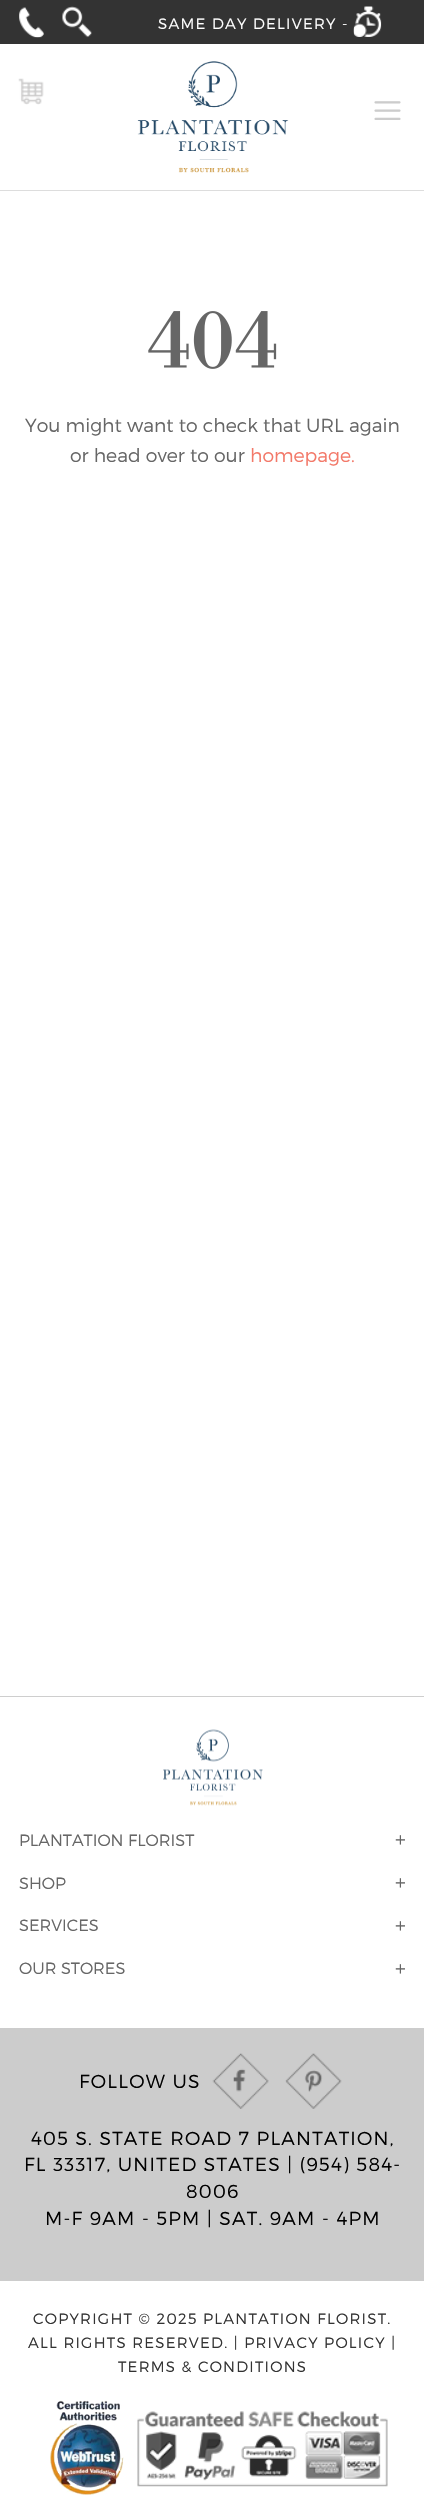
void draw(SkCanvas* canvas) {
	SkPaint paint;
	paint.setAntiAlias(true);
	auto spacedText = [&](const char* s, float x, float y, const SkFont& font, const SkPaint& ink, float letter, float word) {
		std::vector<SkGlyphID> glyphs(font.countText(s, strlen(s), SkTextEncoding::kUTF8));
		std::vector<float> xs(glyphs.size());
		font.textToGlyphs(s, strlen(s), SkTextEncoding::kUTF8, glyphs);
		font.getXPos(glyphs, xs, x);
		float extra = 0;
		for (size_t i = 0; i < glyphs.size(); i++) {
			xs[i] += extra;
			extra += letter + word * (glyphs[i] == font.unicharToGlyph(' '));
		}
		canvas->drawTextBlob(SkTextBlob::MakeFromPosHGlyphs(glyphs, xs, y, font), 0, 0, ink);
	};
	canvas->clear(0xffffffff);
	paint.setColor(0xffdddddd);
	canvas->drawRect(SkRect::MakeXYWH(0, 190, 424, 1), paint);
	paint.setColor(0xff333333);
	canvas->drawRect(SkRect::MakeXYWH(0, 0, 424, 44), paint);
	canvas->drawImageRect(SkImages::DeferredFromEncodedData(SkData::MakeFromFileName("img1.png")), SkRect::MakeXYWH(19, 7, 25, 31), SkSamplingOptions());
	canvas->drawImageRect(SkImages::DeferredFromEncodedData(SkData::MakeFromFileName("img2.png")), SkRect::MakeXYWH(62, 6, 30, 32), SkSamplingOptions());
	SkFont f1(fontMgr->matchFamilyStyle("Montserrat", SkFontStyle(300, SkFontStyle::kNormal_Width, SkFontStyle::kUpright_Slant)), 15);
	f1.setSubpixel(true);
	paint.setColor(0xffffffff);
	spacedText("SAME DAY DELIVERY -", 158, 29, f1, paint, 1.25, 0);
	canvas->drawImageRect(SkImages::DeferredFromEncodedData(SkData::MakeFromFileName("img3.png")), SkRect::MakeXYWH(353, 6, 29, 31), SkSamplingOptions());
	canvas->drawImageRect(SkImages::DeferredFromEncodedData(SkData::MakeFromFileName("img4.png")), SkRect::MakeXYWH(18, 78, 26, 27), SkSamplingOptions());
	canvas->drawImageRect(SkImages::DeferredFromEncodedData(SkData::MakeFromFileName("img5.png")), SkRect::MakeXYWH(137, 61, 152, 112), SkSamplingOptions());
	canvas->drawImageRect(SkImages::DeferredFromEncodedData(SkData::MakeFromFileName("img6.png")), SkRect::MakeXYWH(374, 101, 27, 19), SkSamplingOptions());
	canvas->drawImageRect(SkImages::DeferredFromEncodedData(SkData::MakeFromFileName("img7.png")), SkRect::MakeXYWH(148, 311, 129, 58), SkSamplingOptions());
	SkFont f2(fontMgr->matchFamilyStyle("Montserrat", SkFontStyle(300, SkFontStyle::kNormal_Width, SkFontStyle::kUpright_Slant)), 18.75);
	f2.setSubpixel(true);
	paint.setColor(0xff666666);
	canvas->drawString("You might want to check that URL again", 25, 432, f2, paint);
	canvas->drawString("or head over to our", 70, 462, f2, paint);
	paint.setColor(0xfff37969);
	canvas->drawString("homepage.", 250, 462, f2, paint);
	paint.setColor(0xffcecece);
	canvas->drawRect(SkRect::MakeXYWH(0, 1696, 424, 1), paint);
	canvas->drawImageRect(SkImages::DeferredFromEncodedData(SkData::MakeFromFileName("img8.png")), SkRect::MakeXYWH(163, 1729, 100, 77), SkSamplingOptions());
	SkFont f3(fontMgr->matchFamilyStyle("Montserrat", SkFontStyle(300, SkFontStyle::kNormal_Width, SkFontStyle::kUpright_Slant)), 16.25);
	f3.setSubpixel(true);
	paint.setColor(0xff666666);
	canvas->drawString("PLANTATION FLORIST", 19, 1846, f3, paint);
	SkFont f4(fontMgr->matchFamilyStyle("Montserrat", SkFontStyle(300, SkFontStyle::kNormal_Width, SkFontStyle::kUpright_Slant)), 22);
	f4.setSubpixel(true);
	canvas->drawString("+", 395, 1847, f4, paint);
	canvas->drawString("SHOP", 19, 1889, f3, paint);
	canvas->drawString("+", 395, 1890, f4, paint);
	canvas->drawString("SERVICES", 19, 1931, f3, paint);
	canvas->drawString("+", 395, 1933, f4, paint);
	canvas->drawString("OUR STORES", 19, 1974, f3, paint);
	canvas->drawString("+", 395, 1976, f4, paint);
	paint.setColor(0xffcccccc);
	canvas->drawRect(SkRect::MakeXYWH(0, 2028, 424, 253), paint);
	paint.setColor(0xff000000);
	spacedText("FOLLOW US", 79, 2088, f2, paint, 1.25, 0);
	canvas->drawImageRect(SkImages::DeferredFromEncodedData(SkData::MakeFromFileName("img9.png")), SkRect::MakeXYWH(212, 2053, 57, 56), SkSamplingOptions());
	canvas->drawImageRect(SkImages::DeferredFromEncodedData(SkData::MakeFromFileName("img10.png")), SkRect::MakeXYWH(285, 2053, 57, 56), SkSamplingOptions());
	spacedText("405 S. STATE ROAD 7 PLANTATION,", 31, 2145, f2, paint, 1.25, 0);
	spacedText("FL 33317, UNITED STATES | (954) 584-", 24, 2171, f2, paint, 1.25, 0);
	spacedText("8006", 186, 2198, f2, paint, 1.25, 0);
	spacedText("M-F 9AM - 5PM | SAT. 9AM - 4PM", 45, 2225, f2, paint, 1.25, 0);
	paint.setColor(0xff333333);
	spacedText("COPYRIGHT © 2025 PLANTATION FLORIST.", 33, 2324, f1, paint, 1.25, 0);
	spacedText("ALL RIGHTS RESERVED. | PRIVACY POLICY |", 28, 2348, f1, paint, 1.25, 0);
	spacedText("TERMS & CONDITIONS", 118, 2372, f1, paint, 1.25, 0);
	canvas->drawImageRect(SkImages::DeferredFromEncodedData(SkData::MakeFromFileName("img11.png")), SkRect::MakeXYWH(50, 2400, 74, 95), SkSamplingOptions());
	canvas->drawImageRect(SkImages::DeferredFromEncodedData(SkData::MakeFromFileName("img12.png")), SkRect::MakeXYWH(137, 2411, 251, 76), SkSamplingOptions());
}
